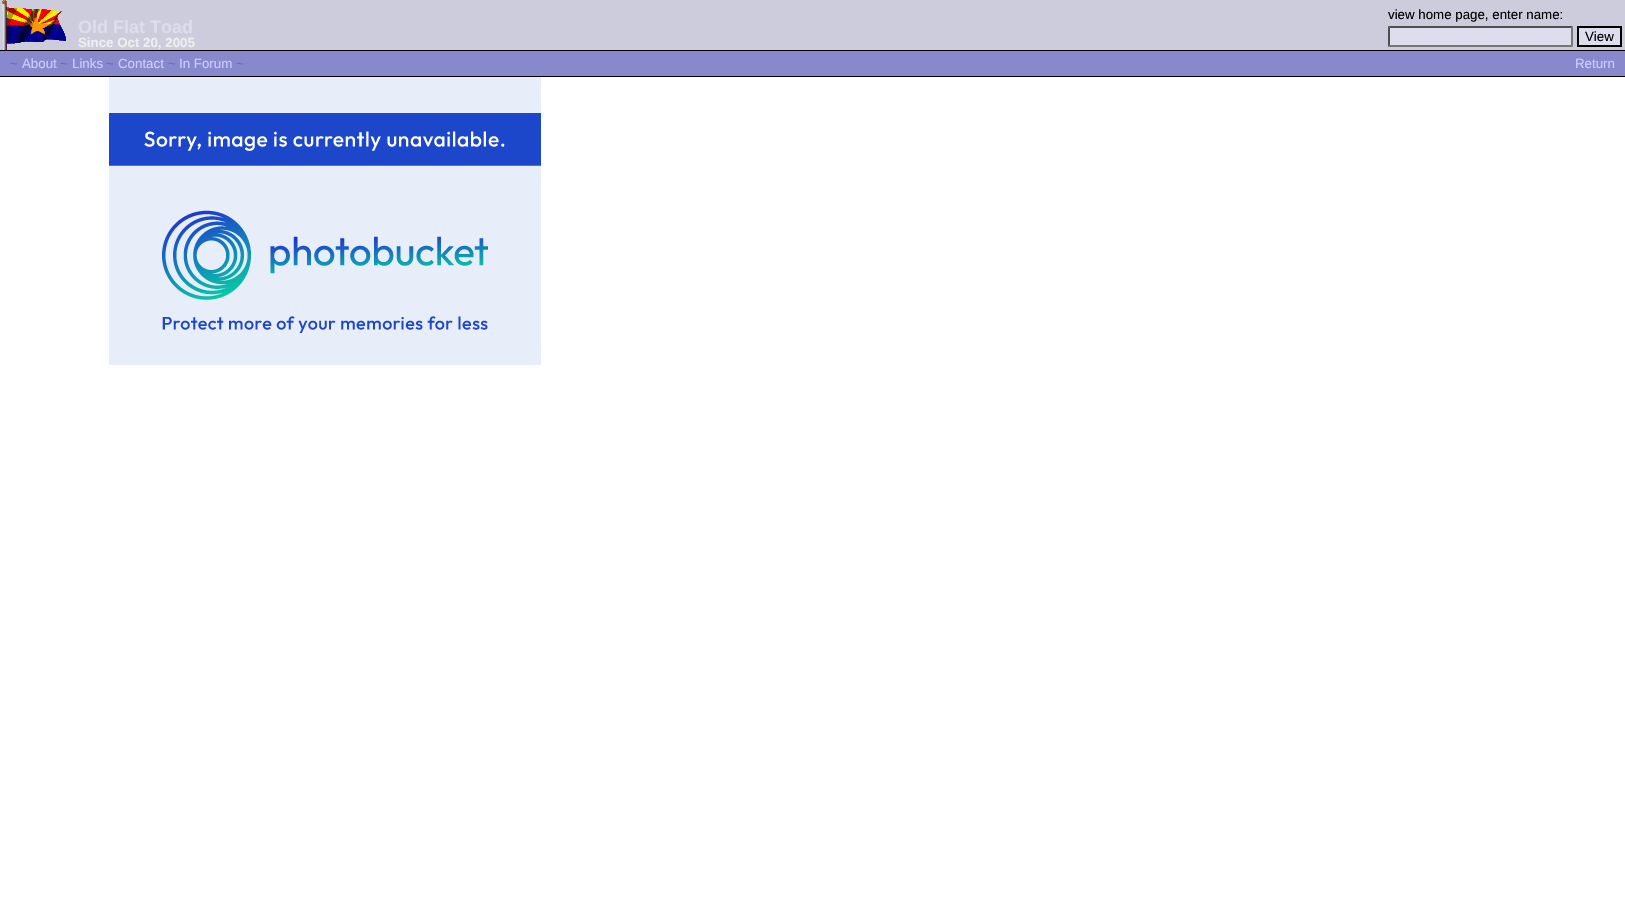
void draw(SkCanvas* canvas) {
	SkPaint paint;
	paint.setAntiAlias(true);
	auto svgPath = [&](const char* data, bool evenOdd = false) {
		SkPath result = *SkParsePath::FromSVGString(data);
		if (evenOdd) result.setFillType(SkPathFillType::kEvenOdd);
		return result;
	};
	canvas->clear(0xffffffff);
	paint.setColor(0xffccccdd);
	canvas->drawRect(SkRect::MakeXYWH(0, 0, 1625, 50), paint);
	canvas->drawImageRect(SkImages::DeferredFromEncodedData(SkData::MakeFromFileName("img1.png")), SkRect::MakeXYWH(2, 0, 64, 50), SkSamplingOptions());
	SkFont f1(fontMgr->matchFamilyStyle("Liberation Sans", SkFontStyle::Bold()), 18);
	f1.setSubpixel(true);
	paint.setColor(0xffddddee);
	canvas->drawString("Old Flat Toad", 78, 33, f1, paint);
	SkFont f2(fontMgr->matchFamilyStyle("Liberation Sans", SkFontStyle::Bold()), 13.3);
	f2.setSubpixel(true);
	paint.setColor(0xffeeeeee);
	canvas->drawString("Since Oct 20, 2005", 78, 47, f2, paint);
	SkFont f3(fontMgr->matchFamilyStyle("Liberation Sans", SkFontStyle::Normal()), 13.3);
	f3.setSubpixel(true);
	paint.setColor(0xff000000);
	canvas->drawString("view home page, enter name:", 1388, 19, f3, paint);
	paint.setColor(0xffddddee);
	canvas->drawRect(SkRect::MakeXYWH(1388, 26, 185, 21), paint);
	paint.setColor(0xff4f4f4f);
	canvas->drawPath(svgPath("M1388 26H1573L1571 28H1390Z"), paint);
	paint.setColor(0xff767676);
	canvas->drawPath(svgPath("M1573 26V47L1571 45V28Z"), paint);
	canvas->drawPath(svgPath("M1573 47H1388L1390 45H1571Z"), paint);
	paint.setColor(0xff4f4f4f);
	canvas->drawPath(svgPath("M1388 47V26L1390 28V45Z"), paint);
	paint.setColor(0xffddddee);
	canvas->drawRect(SkRect::MakeXYWH(1578, 27, 43, 19), paint);
	paint.setStroke(true);
	paint.setStrokeWidth(2);
	paint.setColor(0xff000000);
	canvas->drawRect(SkRect::MakeXYWH(1578, 27, 43, 19), paint);
	paint.setStroke(false);
	canvas->drawString("View", 1585, 41, f3, paint);
	paint.setColor(0xff8888cc);
	canvas->drawRect(SkRect::MakeXYWH(0, 51, 1625, 25), paint);
	paint.setColor(0xff000000);
	canvas->drawRect(SkRect::MakeXYWH(0, 50, 1625, 1), paint);
	canvas->drawRect(SkRect::MakeXYWH(0, 76, 1625, 1), paint);
	paint.setColor(0xff6666dd);
	canvas->drawString("~", 10, 68, f3, paint);
	paint.setColor(0xffccccff);
	canvas->drawString("About", 22, 68, f3, paint);
	paint.setColor(0xff6666dd);
	canvas->drawString("~", 60, 68, f3, paint);
	paint.setColor(0xffccccff);
	canvas->drawString("Links", 72, 68, f3, paint);
	paint.setColor(0xff6666dd);
	canvas->drawString("~", 106, 68, f3, paint);
	paint.setColor(0xffccccff);
	canvas->drawString("Contact", 118, 68, f3, paint);
	paint.setColor(0xff6666dd);
	canvas->drawString("~", 168, 68, f3, paint);
	paint.setColor(0xffccccff);
	canvas->drawString("In Forum", 179, 68, f3, paint);
	paint.setColor(0xff6666dd);
	canvas->drawString("~", 236, 68, f3, paint);
	paint.setColor(0xffccccff);
	canvas->drawString("Return", 1575, 68, f3, paint);
	canvas->drawImageRect(SkImages::DeferredFromEncodedData(SkData::MakeFromFileName("img2.png")), SkRect::MakeXYWH(109, 77, 432, 288), SkSamplingOptions());
}
